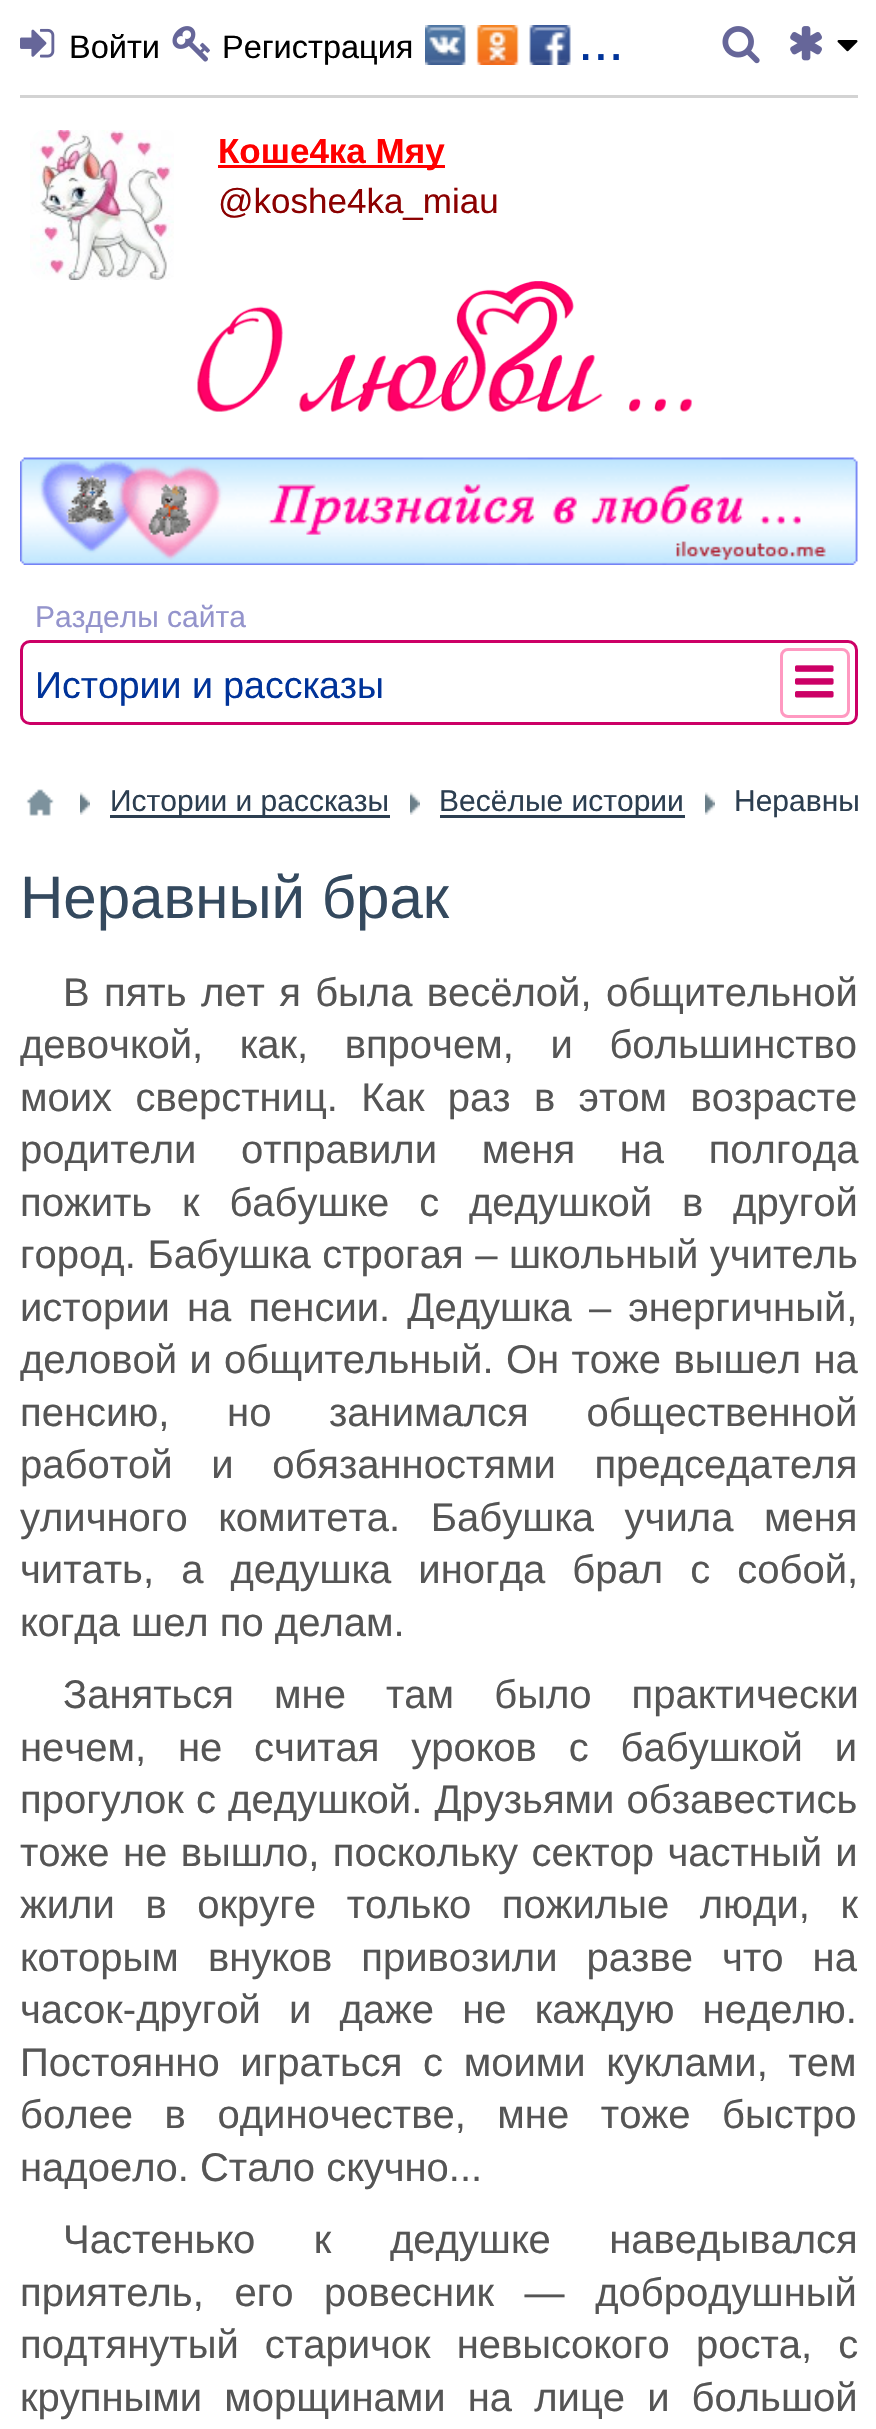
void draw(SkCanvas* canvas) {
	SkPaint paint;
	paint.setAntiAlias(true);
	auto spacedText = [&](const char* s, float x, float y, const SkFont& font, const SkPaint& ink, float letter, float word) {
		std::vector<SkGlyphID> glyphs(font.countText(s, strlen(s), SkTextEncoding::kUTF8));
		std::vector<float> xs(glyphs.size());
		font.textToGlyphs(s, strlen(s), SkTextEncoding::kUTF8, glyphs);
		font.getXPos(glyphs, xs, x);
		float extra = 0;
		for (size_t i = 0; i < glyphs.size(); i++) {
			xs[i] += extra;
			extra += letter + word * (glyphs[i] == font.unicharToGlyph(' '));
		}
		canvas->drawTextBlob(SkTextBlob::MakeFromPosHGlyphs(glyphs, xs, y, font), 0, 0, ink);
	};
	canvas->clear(0xffffffff);
	paint.setColor(0xffd3d3d3);
	canvas->drawRect(SkRect::MakeXYWH(20, 95, 838, 3), paint);
	canvas->drawImageRect(SkImages::DeferredFromEncodedData(SkData::MakeFromFileName("img1.png")), SkRect::MakeXYWH(20, 28, 35, 30), SkSamplingOptions());
	SkFont f1(fontMgr->matchFamilyStyle("Liberation Sans", SkFontStyle::Normal()), 32.5);
	f1.setSubpixel(true);
	paint.setColor(0xff000000);
	canvas->drawString("Войти", 69, 58, f1, paint);
	canvas->drawImageRect(SkImages::DeferredFromEncodedData(SkData::MakeFromFileName("img2.png")), SkRect::MakeXYWH(172, 26, 38, 36), SkSamplingOptions());
	canvas->drawString("Регистрация", 222, 58, f1, paint);
	canvas->drawImageRect(SkImages::DeferredFromEncodedData(SkData::MakeFromFileName("img3.png")), SkRect::MakeXYWH(425, 25, 146, 40), SkSamplingOptions());
	SkFont f2(fontMgr->matchFamilyStyle("Liberation Sans", SkFontStyle::Normal()), 55);
	f2.setSubpixel(true);
	paint.setColor(0xff003399);
	canvas->drawString("...", 578, 60, f2, paint);
	canvas->drawImageRect(SkImages::DeferredFromEncodedData(SkData::MakeFromFileName("img4.png")), SkRect::MakeXYWH(722, 26, 38, 38), SkSamplingOptions());
	canvas->drawImageRect(SkImages::DeferredFromEncodedData(SkData::MakeFromFileName("img5.png")), SkRect::MakeXYWH(790, 26, 32, 35), SkSamplingOptions());
	canvas->drawImageRect(SkImages::DeferredFromEncodedData(SkData::MakeFromFileName("img6.png")), SkRect::MakeXYWH(837, 40, 21, 12), SkSamplingOptions());
	canvas->drawImageRect(SkImages::DeferredFromEncodedData(SkData::MakeFromFileName("img7.png")), SkRect::MakeXYWH(30, 130, 144, 150), SkSamplingOptions());
	paint.setColor(0xffff0000);
	canvas->drawRect(SkRect::MakeXYWH(218, 165, 227, 3), paint);
	SkFont f3(fontMgr->matchFamilyStyle("Liberation Sans", SkFontStyle::Bold()), 35);
	f3.setSubpixel(true);
	canvas->drawString("Коше4ка Мяу", 218, 163, f3, paint);
	SkFont f4(fontMgr->matchFamilyStyle("Liberation Sans", SkFontStyle::Normal()), 35);
	f4.setSubpixel(true);
	paint.setColor(0xff8b0000);
	canvas->drawString("@koshe4ka_miau", 218, 213, f4, paint);
	canvas->drawImageRect(SkImages::DeferredFromEncodedData(SkData::MakeFromFileName("img8.png")), SkRect::MakeXYWH(197, 281, 495, 131), SkSamplingOptions());
	canvas->drawImageRect(SkImages::DeferredFromEncodedData(SkData::MakeFromFileName("img9.png")), SkRect::MakeXYWH(20, 457, 838, 108), SkSamplingOptions());
	SkFont f5(fontMgr->matchFamilyStyle("Liberation Sans", SkFontStyle::Normal()), 30);
	f5.setSubpixel(true);
	paint.setColor(0xff9494cc);
	canvas->drawString("Разделы сайта", 35, 627, f5, paint);
	paint.setStroke(true);
	paint.setStrokeWidth(3);
	paint.setColor(0xffcc0066);
	canvas->drawRoundRect(SkRect::MakeXYWH(21.5, 641.5, 835, 82), 8.5, 8.5, paint);
	SkFont f6(fontMgr->matchFamilyStyle("Liberation Sans", SkFontStyle::Normal()), 37.5);
	f6.setSubpixel(true);
	paint.setStroke(false);
	paint.setColor(0xff003399);
	canvas->drawString("Истории и рассказы", 35, 698, f6, paint);
	paint.setStroke(true);
	paint.setColor(0xffff99c1);
	canvas->drawRoundRect(SkRect::MakeXYWH(781.5, 649.5, 67, 67), 6.5, 6.5, paint);
	canvas->drawImageRect(SkImages::DeferredFromEncodedData(SkData::MakeFromFileName("img10.png")), SkRect::MakeXYWH(795, 665, 39, 33), SkSamplingOptions());
	canvas->drawImageRect(SkImages::DeferredFromEncodedData(SkData::MakeFromFileName("img11.png")), SkRect::MakeXYWH(26, 789, 28, 27), SkSamplingOptions());
	canvas->drawImageRect(SkImages::DeferredFromEncodedData(SkData::MakeFromFileName("img12.png")), SkRect::MakeXYWH(80, 792, 10, 23), SkSamplingOptions());
	paint.setStroke(false);
	paint.setColor(0xff2c3e50);
	canvas->drawRect(SkRect::MakeXYWH(110, 815, 280, 3), paint);
	canvas->drawString("Истории и рассказы", 110, 811, f5, paint);
	canvas->drawImageRect(SkImages::DeferredFromEncodedData(SkData::MakeFromFileName("img12.png")), SkRect::MakeXYWH(410, 792, 10, 23), SkSamplingOptions());
	canvas->drawRect(SkRect::MakeXYWH(440, 815, 245, 3), paint);
	canvas->drawString("Весёлые истории", 439, 811, f5, paint);
	canvas->drawImageRect(SkImages::DeferredFromEncodedData(SkData::MakeFromFileName("img13.png")), SkRect::MakeXYWH(705, 792, 10, 23), SkSamplingOptions());
	canvas->drawString("Неравны", 734, 811, f5, paint);
	SkFont f7(fontMgr->matchFamilyStyle("Liberation Sans", SkFontStyle::Normal()), 60);
	f7.setSubpixel(true);
	paint.setColor(0xff34495e);
	canvas->drawString("Неравный брак", 20, 918, f7, paint);
	SkFont f8(fontMgr->matchFamilyStyle("Liberation Sans", SkFontStyle::Normal()), 40);
	f8.setSubpixel(true);
	paint.setColor(0xff555555);
	spacedText("В пять лет я была весёлой, общительной", 63, 1006, f8, paint, 0, 3.25);
	spacedText("девочкой, как, впрочем, и большинство", 20, 1058, f8, paint, 0, 25.5);
	spacedText("моих сверстниц. Как раз в этом возрасте", 20, 1111, f8, paint, 0, 12.25);
	spacedText("родители отправили меня на полгода", 20, 1163, f8, paint, 0, 33.5);
	spacedText("пожить к бабушке с дедушкой в другой", 20, 1216, f8, paint, 0, 18.75);
	spacedText("город. Бабушка строгая – школьный учитель", 20, 1268, f8, paint, 0, 0.5);
	spacedText("истории на пенсии. Дедушка – энергичный,", 20, 1321, f8, paint, 0, 6);
	spacedText("деловой и общительный. Он тоже вышел на", 20, 1373, f8, paint, 0, 1.25);
	spacedText("пенсию, но занимался общественной", 20, 1426, f8, paint, 0, 46.5);
	spacedText("работой и обязанностями председателя", 20, 1478, f8, paint, 0, 27.5);
	spacedText("уличного комитета. Бабушка учила меня", 20, 1531, f8, paint, 0, 19.5);
	spacedText("читать, а дедушка иногда брал с собой,", 20, 1583, f8, paint, 0, 16);
	canvas->drawString("когда шел по делам.", 20, 1636, f8, paint);
	spacedText("Заняться мне там было практически", 63, 1708, f8, paint, 0, 29);
	spacedText("нечем, не считая уроков с бабушкой и", 20, 1761, f8, paint, 0, 20.75);
	spacedText("прогулок с дедушкой. Друзьями обзавестись", 20, 1813, f8, paint, 0, 1);
	spacedText("тоже не вышло, поскольку сектор частный и", 20, 1866, f8, paint, 0, 2.25);
	spacedText("жили в округе только пожилые люди, к", 20, 1918, f8, paint, 0, 19.5);
	spacedText("которым внуков привозили разве что на", 20, 1971, f8, paint, 0, 18);
	spacedText("часок-другой и даже не каждую неделю.", 20, 2023, f8, paint, 0, 17);
	spacedText("Постоянно играться с моими куклами, тем", 20, 2076, f8, paint, 0, 9.5);
	spacedText("более в одиночестве, мне тоже быстро", 20, 2128, f8, paint, 0, 20.5);
	canvas->drawString("надоело. Стало скучно...", 20, 2181, f8, paint);
	spacedText("Частенько к дедушке наведывался", 63, 2253, f8, paint, 0, 47.5);
	spacedText("приятель, его ровесник — добродушный", 20, 2306, f8, paint, 0, 19.5);
	spacedText("подтянутый старичок невысокого роста, с", 20, 2358, f8, paint, 0, 15);
	spacedText("крупными морщинами на лице и большой", 20, 2411, f8, paint, 0, 11);
}
